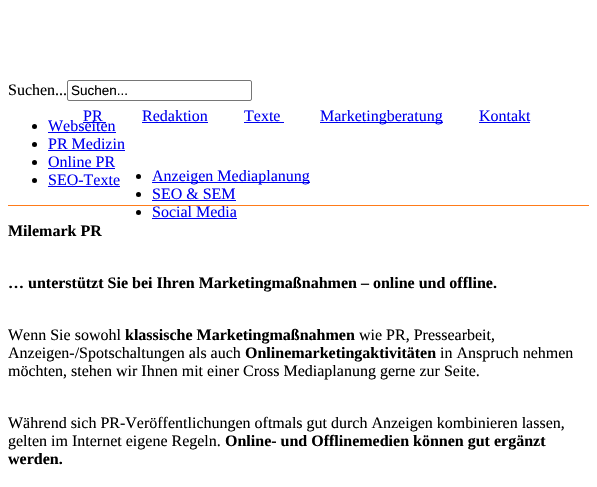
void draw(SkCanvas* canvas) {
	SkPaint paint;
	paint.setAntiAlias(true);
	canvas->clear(0xffffffff);
	SkFont f1(fontMgr->matchFamilyStyle("Liberation Serif", SkFontStyle::Normal()), 16);
	f1.setSubpixel(true);
	paint.setColor(0xff000000);
	canvas->drawString("Suchen...", 8, 95, f1, paint);
	paint.setStroke(true);
	paint.setStrokeWidth(1);
	paint.setColor(0xff767676);
	canvas->drawRoundRect(SkRect::MakeXYWH(67.5, 80.5, 184, 20), 1.5, 1.5, paint);
	SkFont f2(fontMgr->matchFamilyStyle("Liberation Sans", SkFontStyle::Normal()), 13.5);
	f2.setSubpixel(true);
	paint.setStroke(false);
	paint.setColor(0xff000000);
	canvas->drawString("Suchen...", 71, 95, f2, paint);
	paint.setColor(0xff0000ee);
	canvas->drawString("PR", 83, 121, f1, paint);
	canvas->drawRect(SkRect::MakeXYWH(83, 122, 23, 1), paint);
	canvas->drawString("Redaktion", 142, 121, f1, paint);
	canvas->drawRect(SkRect::MakeXYWH(142, 122, 66, 1), paint);
	canvas->drawString("Texte", 244, 121, f1, paint);
	canvas->drawRect(SkRect::MakeXYWH(244, 122, 40, 1), paint);
	canvas->drawRect(SkRect::MakeXYWH(320, 122, 123, 1), paint);
	canvas->drawString("Marketingberatung", 320, 121, f1, paint);
	canvas->drawString("Kontakt", 479, 121, f1, paint);
	canvas->drawRect(SkRect::MakeXYWH(479, 122, 51, 1), paint);
	paint.setColor(0xff000000);
	canvas->drawCircle(138.5, 176.5, 2.5, paint);
	paint.setColor(0xff0000ee);
	canvas->drawRect(SkRect::MakeXYWH(152, 182, 158, 1), paint);
	canvas->drawString("Anzeigen Mediaplanung", 152, 181, f1, paint);
	paint.setColor(0xff000000);
	canvas->drawCircle(138.5, 194.5, 2.5, paint);
	paint.setColor(0xff0000ee);
	canvas->drawString("SEO & SEM", 152, 199, f1, paint);
	canvas->drawRect(SkRect::MakeXYWH(152, 200, 84, 1), paint);
	paint.setColor(0xff000000);
	canvas->drawCircle(138.5, 212.5, 2.5, paint);
	paint.setColor(0xffff7b19);
	canvas->drawRect(SkRect::MakeXYWH(8, 205, 581, 1), paint);
	paint.setColor(0xff0000ee);
	canvas->drawString("Social Media", 152, 217, f1, paint);
	canvas->drawRect(SkRect::MakeXYWH(152, 218, 85, 1), paint);
	paint.setColor(0xff000000);
	canvas->drawCircle(34.5, 126.5, 2.5, paint);
	paint.setColor(0xff0000ee);
	canvas->drawString("Webseiten", 48, 131, f1, paint);
	canvas->drawRect(SkRect::MakeXYWH(48, 132, 68, 1), paint);
	paint.setColor(0xff000000);
	canvas->drawCircle(34.5, 144.5, 2.5, paint);
	paint.setColor(0xff0000ee);
	canvas->drawString("PR Medizin", 48, 149, f1, paint);
	canvas->drawRect(SkRect::MakeXYWH(48, 150, 77, 1), paint);
	paint.setColor(0xff000000);
	canvas->drawCircle(34.5, 162.5, 2.5, paint);
	paint.setColor(0xff0000ee);
	canvas->drawString("Online PR", 48, 167, f1, paint);
	canvas->drawRect(SkRect::MakeXYWH(48, 168, 67, 1), paint);
	paint.setColor(0xff000000);
	canvas->drawCircle(34.5, 180.5, 2.5, paint);
	paint.setColor(0xff0000ee);
	canvas->drawString("SEO-Texte", 48, 185, f1, paint);
	canvas->drawRect(SkRect::MakeXYWH(48, 186, 72, 1), paint);
	SkFont f3(fontMgr->matchFamilyStyle("Liberation Serif", SkFontStyle::Bold()), 16);
	f3.setSubpixel(true);
	paint.setColor(0xff000000);
	canvas->drawString("Milemark PR", 8, 236, f3, paint);
	canvas->drawString("… unterstützt Sie bei Ihren Marketingmaßnahmen – online und offline.", 8, 288, f3, paint);
	canvas->drawString("Wenn Sie sowohl", 8, 340, f1, paint);
	canvas->drawString("klassische Marketingmaßnahmen", 125, 340, f3, paint);
	canvas->drawString("wie PR, Pressearbeit,", 359, 340, f1, paint);
	canvas->drawString("Anzeigen-/Spotschaltungen als auch", 8, 358, f1, paint);
	canvas->drawString("Onlinemarketingaktivitäten", 245, 358, f3, paint);
	canvas->drawString("in Anspruch nehmen", 440, 358, f1, paint);
	canvas->drawString("möchten, stehen wir Ihnen mit einer Cross Mediaplanung gerne zur Seite.", 8, 376, f1, paint);
	canvas->drawString("Während sich PR-Veröffentlichungen oftmals gut durch Anzeigen kombinieren lassen,", 8, 428, f1, paint);
	canvas->drawString("gelten im Internet eigene Regeln.", 8, 446, f1, paint);
	canvas->drawString("Online- und Offlinemedien können gut ergänzt", 225, 446, f3, paint);
	canvas->drawString("werden.", 8, 464, f3, paint);
}
